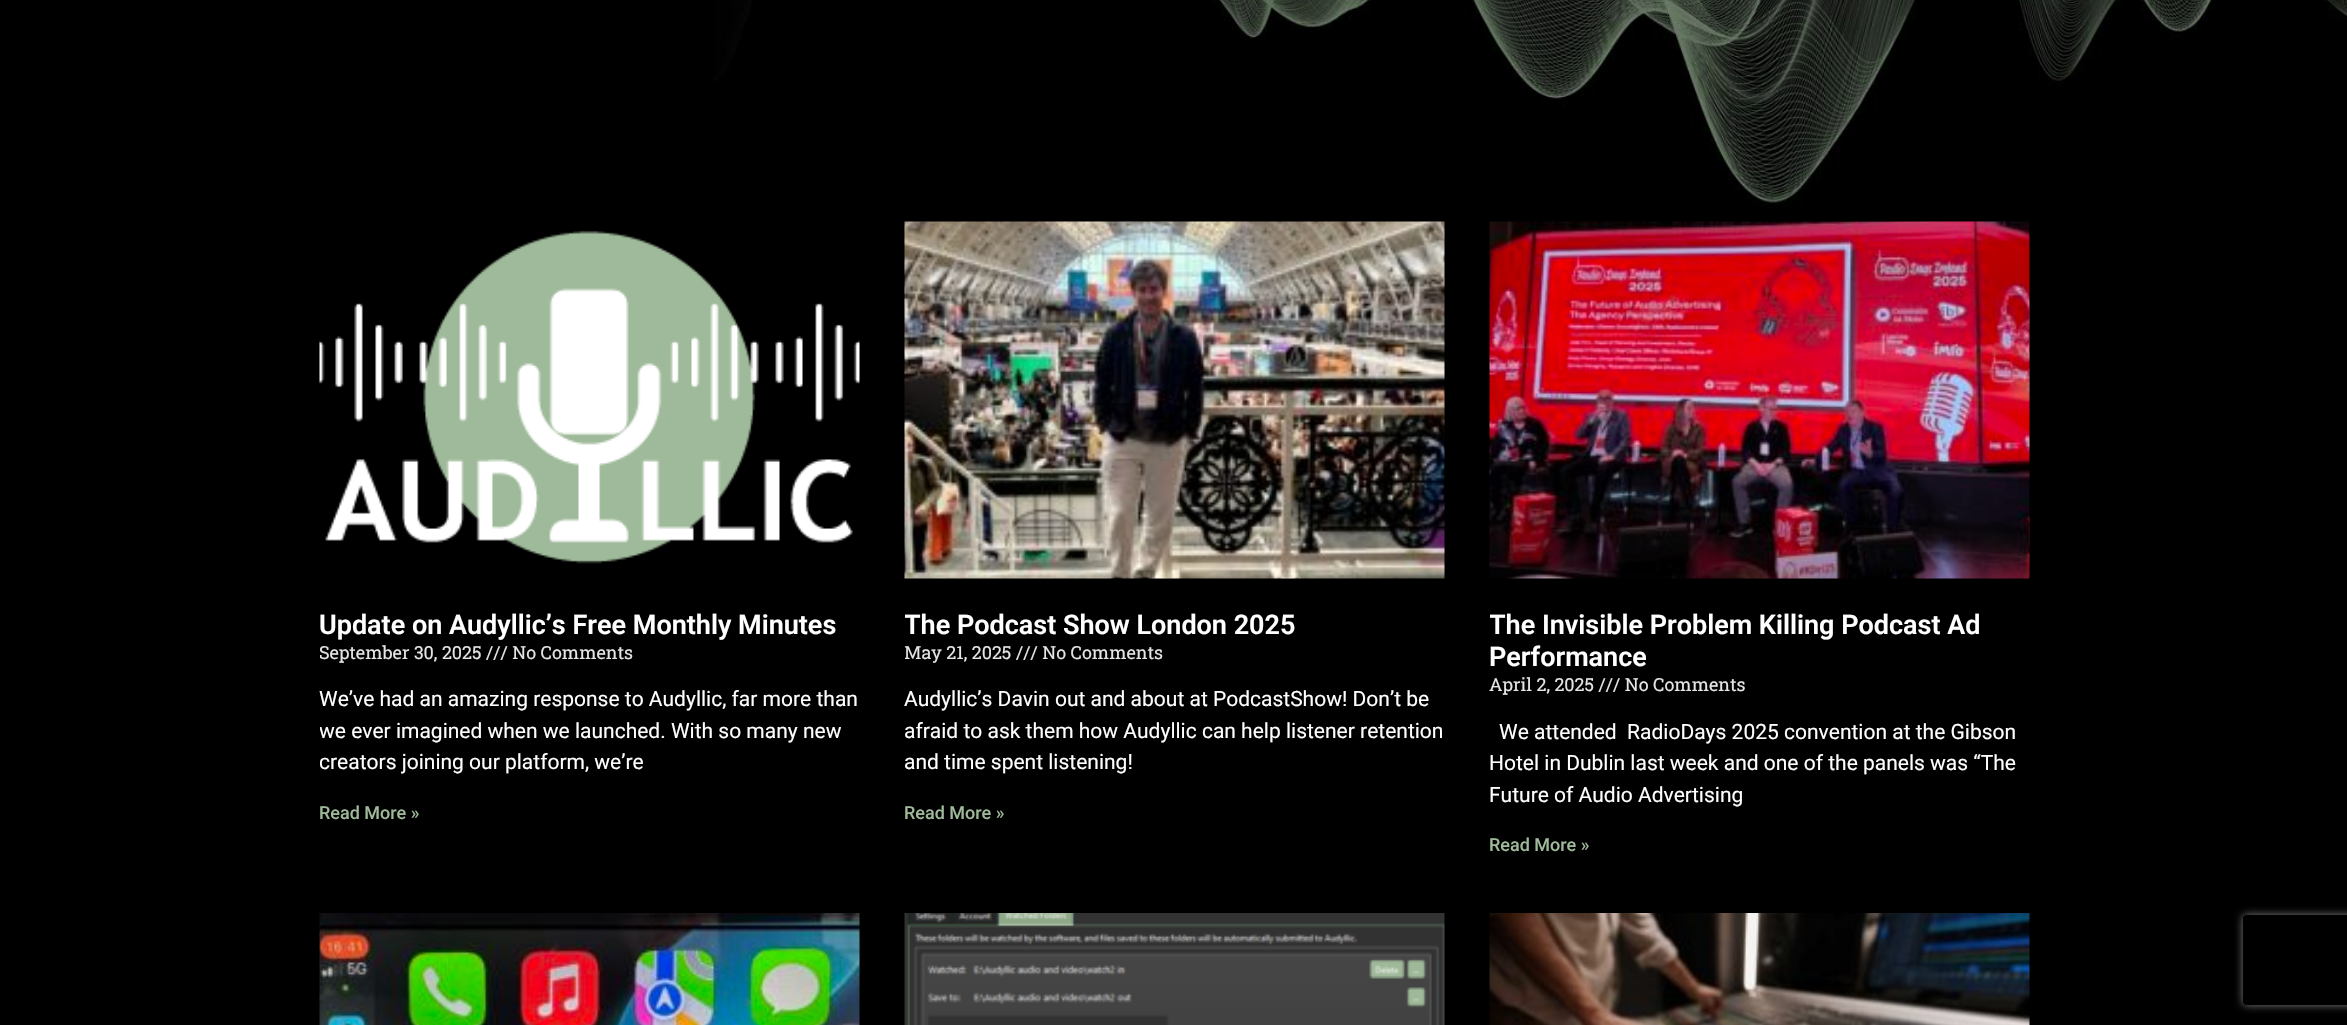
void draw(SkCanvas* canvas) {
	SkPaint paint;
	paint.setAntiAlias(true);
	auto svgPath = [&](const char* data, bool evenOdd = false) {
		SkPath result = *SkParsePath::FromSVGString(data);
		if (evenOdd) result.setFillType(SkPathFillType::kEvenOdd);
		return result;
	};
	canvas->clear(0xff000000);
	canvas->drawImageRect(SkImages::DeferredFromEncodedData(SkData::MakeFromFileName("img1.png")), SkRect::MakeXYWH(714, 0, 1633, 208), SkSamplingOptions());
	canvas->drawImageRect(SkImages::DeferredFromEncodedData(SkData::MakeFromFileName("img2.png")), SkRect::MakeXYWH(319, 230, 541, 334), SkSamplingOptions());
	SkFont f1(fontMgr->matchFamilyStyle("Roboto", SkFontStyle(600, SkFontStyle::kNormal_Width, SkFontStyle::kUpright_Slant)), 27);
	f1.setSubpixel(true);
	paint.setColor(0xffffffff);
	canvas->drawString("Update on Audyllic’s Free Monthly Minutes", 319, 634, f1, paint);
	canvas->save();
	canvas->clipRect(SkRect::MakeXYWH(320, 222, 540, 639));
	SkFont f2(fontMgr->matchFamilyStyle("Roboto Slab", SkFontStyle::Normal()), 18);
	f2.setSubpixel(true);
	paint.setColor(0xffe5e5e5);
	canvas->drawString("September 30, 2025", 319, 659, f2, paint);
	canvas->restore();
	canvas->drawString("/// No Comments", 486, 659, f2, paint);
	SkFont f3(fontMgr->matchFamilyStyle("Roboto", SkFontStyle::Normal()), 21);
	f3.setSubpixel(true);
	paint.setColor(0xffffffff);
	canvas->drawString("We’ve had an amazing response to Audyllic, far more than", 319, 706, f3, paint);
	canvas->save();
	canvas->clipRect(SkRect::MakeXYWH(320, 222, 540, 639));
	canvas->drawString("we ever imagined when we launched. With so many new", 319, 738, f3, paint);
	canvas->drawString("creators joining our platform, we’re", 319, 769, f3, paint);
	canvas->restore();
	SkFont f4(fontMgr->matchFamilyStyle("Roboto", SkFontStyle(500, SkFontStyle::kNormal_Width, SkFontStyle::kUpright_Slant)), 18);
	f4.setSubpixel(true);
	paint.setColor(0xff9fba9a);
	canvas->drawString("Read More »", 319, 819, f4, paint);
	canvas->drawImageRect(SkImages::DeferredFromEncodedData(SkData::MakeFromFileName("img3.png")), SkRect::MakeXYWH(904, 221, 541, 358), SkSamplingOptions());
	canvas->save();
	canvas->clipRect(SkRect::MakeXYWH(905, 222, 540, 639));
	paint.setColor(0xffffffff);
	canvas->drawString("The Podcast Show London 2025", 904, 634, f1, paint);
	paint.setColor(0xffe5e5e5);
	canvas->drawString("May 21, 2025", 904, 659, f2, paint);
	canvas->restore();
	canvas->drawString("/// No Comments", 1016, 659, f2, paint);
	paint.setColor(0xffffffff);
	canvas->drawString("Audyllic’s Davin out and about at PodcastShow! Don’t be", 904, 706, f3, paint);
	canvas->drawString("afraid to ask them how Audyllic can help listener retention", 904, 738, f3, paint);
	canvas->drawString("and time spent listening!", 904, 769, f3, paint);
	paint.setColor(0xff9fba9a);
	canvas->drawString("Read More »", 904, 819, f4, paint);
	canvas->drawImageRect(SkImages::DeferredFromEncodedData(SkData::MakeFromFileName("img4.png")), SkRect::MakeXYWH(1489, 221, 541, 358), SkSamplingOptions());
	canvas->save();
	canvas->clipRect(SkRect::MakeXYWH(1490, 222, 540, 639));
	paint.setColor(0xffffffff);
	canvas->drawString("The Invisible Problem Killing Podcast Ad", 1489, 634, f1, paint);
	canvas->restore();
	canvas->drawString("Performance", 1489, 666, f1, paint);
	paint.setColor(0xffe5e5e5);
	canvas->drawString("April 2, 2025 /// No Comments", 1489, 691, f2, paint);
	paint.setColor(0xffffffff);
	canvas->drawString("We attended  RadioDays 2025 convention at the Gibson", 1499, 739, f3, paint);
	canvas->drawString("Hotel in Dublin last week and one of the panels was “The", 1489, 770, f3, paint);
	canvas->drawString("Future of Audio Advertising", 1489, 802, f3, paint);
	paint.setColor(0xff9fba9a);
	canvas->drawString("Read More »", 1489, 851, f4, paint);
	canvas->drawImageRect(SkImages::DeferredFromEncodedData(SkData::MakeFromFileName("img5.png")), SkRect::MakeXYWH(319, 913, 541, 112), SkSamplingOptions());
	canvas->drawImageRect(SkImages::DeferredFromEncodedData(SkData::MakeFromFileName("img6.png")), SkRect::MakeXYWH(904, 913, 541, 112), SkSamplingOptions());
	canvas->drawImageRect(SkImages::DeferredFromEncodedData(SkData::MakeFromFileName("img7.png")), SkRect::MakeXYWH(1489, 913, 541, 112), SkSamplingOptions());
	canvas->save();
	canvas->clipPath(svgPath("M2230 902H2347V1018H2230ZM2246 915H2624C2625.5 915 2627 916.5 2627 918V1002C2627 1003.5 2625.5 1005 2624 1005H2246C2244.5 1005 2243 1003.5 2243 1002V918C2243 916.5 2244.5 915 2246 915Z", true), true);
	paint.setColor(0xff808080);
	paint.setMaskFilter(SkMaskFilter::MakeBlur(kNormal_SkBlurStyle, 4));
	canvas->drawRoundRect(SkRect::MakeXYWH(2243, 915, 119, 90), 3, 3, paint);
	paint.setMaskFilter(nullptr);
	canvas->restore();
}
